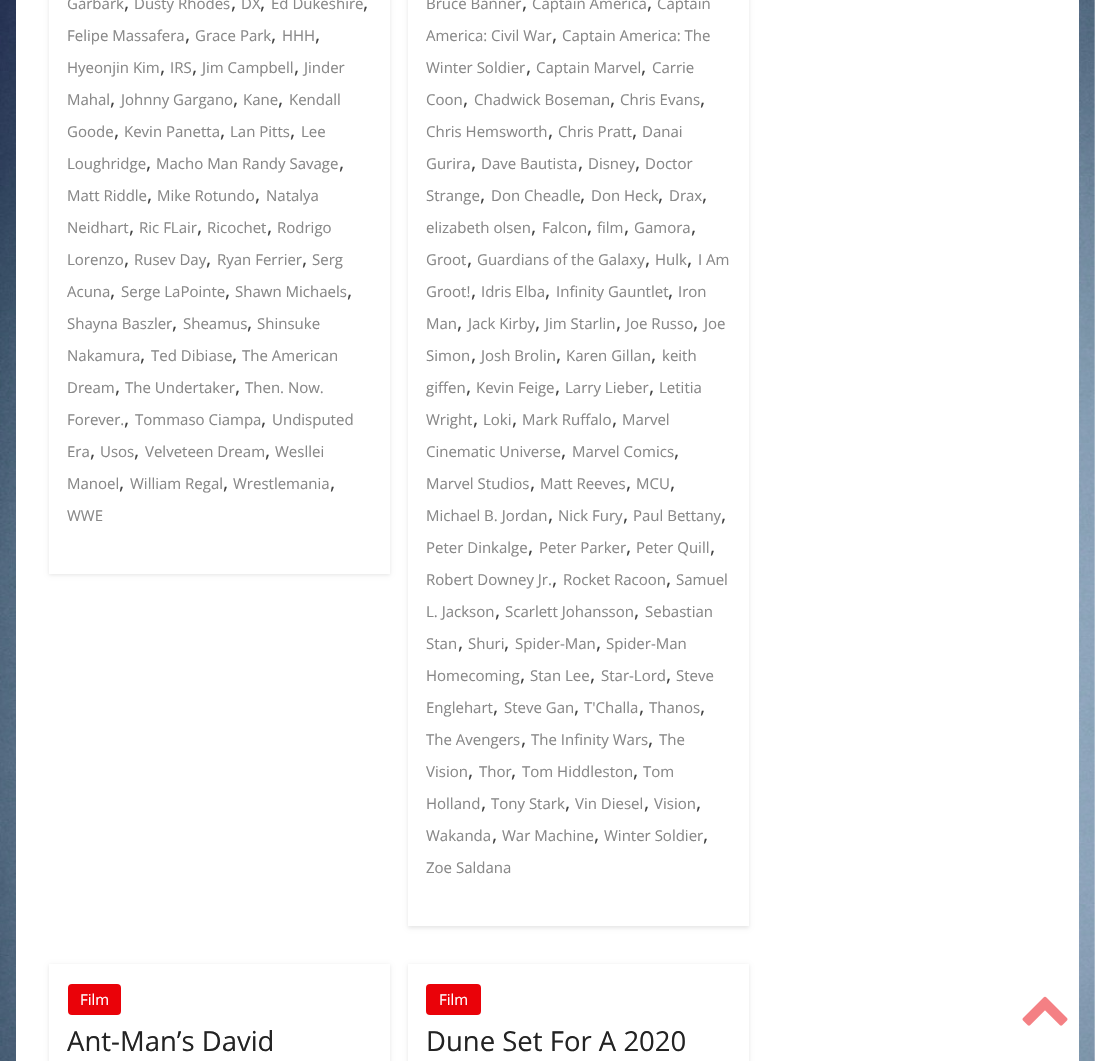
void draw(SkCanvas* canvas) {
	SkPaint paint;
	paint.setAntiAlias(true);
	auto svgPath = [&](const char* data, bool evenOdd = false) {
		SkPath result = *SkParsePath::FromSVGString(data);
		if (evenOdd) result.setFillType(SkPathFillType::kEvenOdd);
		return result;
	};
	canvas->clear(0xffffffff);
	canvas->drawImageRect(SkImages::DeferredFromEncodedData(SkData::MakeFromFileName("img1.png")), SkRect::MakeXYWH(0, 0, 1095, 1061), SkSamplingOptions());
	paint.setColor(0xffffffff);
	canvas->drawRect(SkRect::MakeXYWH(16, 0, 1063, 1061), paint);
	canvas->save();
	canvas->clipPath(svgPath("M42 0H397V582H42ZM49-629H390V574H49Z", true), true);
	paint.setColor(0x1a000000);
	paint.setMaskFilter(SkMaskFilter::MakeBlur(kNormal_SkBlurStyle, 2));
	canvas->drawRect(SkRect::MakeXYWH(49, -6, 341, 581), paint);
	paint.setMaskFilter(nullptr);
	canvas->restore();
	SkFont f1(fontMgr->matchFamilyStyle("Open Sans", SkFontStyle::Normal()), 15);
	f1.setSubpixel(true);
	paint.setColor(0xff888888);
	canvas->drawString("Garbark", 67, 9, f1, paint);
	SkFont f2(fontMgr->matchFamilyStyle("Open Sans", SkFontStyle::Normal()), 20);
	f2.setSubpixel(true);
	paint.setColor(0xff444444);
	canvas->drawString(",", 124, 9, f2, paint);
	paint.setColor(0xff888888);
	canvas->drawString("Dusty Rhodes", 134, 9, f1, paint);
	paint.setColor(0xff444444);
	canvas->drawString(",", 231, 9, f2, paint);
	paint.setColor(0xff888888);
	canvas->drawString("DX", 241, 9, f1, paint);
	paint.setColor(0xff444444);
	canvas->drawString(",", 260, 9, f2, paint);
	paint.setColor(0xff888888);
	canvas->drawString("Ed Dukeshire", 271, 9, f1, paint);
	paint.setColor(0xff444444);
	canvas->drawString(",", 363, 9, f2, paint);
	paint.setColor(0xff888888);
	canvas->drawString("Felipe Massafera", 67, 41, f1, paint);
	paint.setColor(0xff444444);
	canvas->drawString(",", 185, 41, f2, paint);
	paint.setColor(0xff888888);
	canvas->drawString("Grace Park", 195, 41, f1, paint);
	paint.setColor(0xff444444);
	canvas->drawString(",", 271, 41, f2, paint);
	paint.setColor(0xff888888);
	canvas->drawString("HHH", 282, 41, f1, paint);
	paint.setColor(0xff444444);
	canvas->drawString(",", 315, 41, f2, paint);
	paint.setColor(0xff888888);
	canvas->drawString("Hyeonjin Kim", 67, 73, f1, paint);
	paint.setColor(0xff444444);
	canvas->drawString(",", 160, 73, f2, paint);
	paint.setColor(0xff888888);
	canvas->drawString("IRS", 170, 73, f1, paint);
	paint.setColor(0xff444444);
	canvas->drawString(",", 192, 73, f2, paint);
	paint.setColor(0xff888888);
	canvas->drawString("Jim Campbell", 202, 73, f1, paint);
	paint.setColor(0xff444444);
	canvas->drawString(",", 294, 73, f2, paint);
	paint.setColor(0xff888888);
	canvas->drawString("Jinder", 304, 73, f1, paint);
	canvas->drawString("Mahal", 67, 105, f1, paint);
	paint.setColor(0xff444444);
	canvas->drawString(",", 110, 105, f2, paint);
	paint.setColor(0xff888888);
	canvas->drawString("Johnny Gargano", 121, 105, f1, paint);
	paint.setColor(0xff444444);
	canvas->drawString(",", 233, 105, f2, paint);
	paint.setColor(0xff888888);
	canvas->drawString("Kane", 243, 105, f1, paint);
	paint.setColor(0xff444444);
	canvas->drawString(",", 278, 105, f2, paint);
	paint.setColor(0xff888888);
	canvas->drawString("Kendall", 289, 105, f1, paint);
	canvas->drawString("Goode", 67, 137, f1, paint);
	paint.setColor(0xff444444);
	canvas->drawString(",", 114, 137, f2, paint);
	paint.setColor(0xff888888);
	canvas->drawString("Kevin Panetta", 124, 137, f1, paint);
	paint.setColor(0xff444444);
	canvas->drawString(",", 220, 137, f2, paint);
	paint.setColor(0xff888888);
	canvas->drawString("Lan Pitts", 230, 137, f1, paint);
	paint.setColor(0xff444444);
	canvas->drawString(",", 290, 137, f2, paint);
	paint.setColor(0xff888888);
	canvas->drawString("Lee", 301, 137, f1, paint);
	canvas->drawString("Loughridge", 67, 169, f1, paint);
	paint.setColor(0xff444444);
	canvas->drawString(",", 146, 169, f2, paint);
	paint.setColor(0xff888888);
	canvas->drawString("Macho Man Randy Savage", 156, 169, f1, paint);
	paint.setColor(0xff444444);
	canvas->drawString(",", 339, 169, f2, paint);
	paint.setColor(0xff888888);
	canvas->drawString("Matt Riddle", 67, 201, f1, paint);
	paint.setColor(0xff444444);
	canvas->drawString(",", 147, 201, f2, paint);
	paint.setColor(0xff888888);
	canvas->drawString("Mike Rotundo", 157, 201, f1, paint);
	paint.setColor(0xff444444);
	canvas->drawString(",", 255, 201, f2, paint);
	paint.setColor(0xff888888);
	canvas->drawString("Natalya", 266, 201, f1, paint);
	canvas->drawString("Neidhart", 67, 233, f1, paint);
	paint.setColor(0xff444444);
	canvas->drawString(",", 129, 233, f2, paint);
	paint.setColor(0xff888888);
	canvas->drawString("Ric FLair", 139, 233, f1, paint);
	paint.setColor(0xff444444);
	canvas->drawString(",", 197, 233, f2, paint);
	paint.setColor(0xff888888);
	canvas->drawString("Ricochet", 207, 233, f1, paint);
	paint.setColor(0xff444444);
	canvas->drawString(",", 267, 233, f2, paint);
	paint.setColor(0xff888888);
	canvas->drawString("Rodrigo", 277, 233, f1, paint);
	canvas->drawString("Lorenzo", 67, 265, f1, paint);
	paint.setColor(0xff444444);
	canvas->drawString(",", 124, 265, f2, paint);
	paint.setColor(0xff888888);
	canvas->drawString("Rusev Day", 134, 265, f1, paint);
	paint.setColor(0xff444444);
	canvas->drawString(",", 206, 265, f2, paint);
	paint.setColor(0xff888888);
	canvas->drawString("Ryan Ferrier", 217, 265, f1, paint);
	paint.setColor(0xff444444);
	canvas->drawString(",", 302, 265, f2, paint);
	paint.setColor(0xff888888);
	canvas->drawString("Serg", 312, 265, f1, paint);
	canvas->drawString("Acuna", 67, 297, f1, paint);
	paint.setColor(0xff444444);
	canvas->drawString(",", 110, 297, f2, paint);
	paint.setColor(0xff888888);
	canvas->drawString("Serge LaPointe", 121, 297, f1, paint);
	paint.setColor(0xff444444);
	canvas->drawString(",", 225, 297, f2, paint);
	paint.setColor(0xff888888);
	canvas->drawString("Shawn Michaels", 235, 297, f1, paint);
	paint.setColor(0xff444444);
	canvas->drawString(",", 347, 297, f2, paint);
	paint.setColor(0xff888888);
	canvas->drawString("Shayna Baszler", 67, 329, f1, paint);
	paint.setColor(0xff444444);
	canvas->drawString(",", 172, 329, f2, paint);
	paint.setColor(0xff888888);
	canvas->drawString("Sheamus", 183, 329, f1, paint);
	paint.setColor(0xff444444);
	canvas->drawString(",", 247, 329, f2, paint);
	paint.setColor(0xff888888);
	canvas->drawString("Shinsuke", 257, 329, f1, paint);
	canvas->drawString("Nakamura", 67, 361, f1, paint);
	paint.setColor(0xff444444);
	canvas->drawString(",", 140, 361, f2, paint);
	paint.setColor(0xff888888);
	canvas->drawString("Ted Dibiase", 151, 361, f1, paint);
	paint.setColor(0xff444444);
	canvas->drawString(",", 232, 361, f2, paint);
	paint.setColor(0xff888888);
	canvas->drawString("The American", 242, 361, f1, paint);
	canvas->drawString("Dream", 67, 393, f1, paint);
	paint.setColor(0xff444444);
	canvas->drawString(",", 115, 393, f2, paint);
	paint.setColor(0xff888888);
	canvas->drawString("The Undertaker", 125, 393, f1, paint);
	paint.setColor(0xff444444);
	canvas->drawString(",", 235, 393, f2, paint);
	paint.setColor(0xff888888);
	canvas->drawString("Then. Now.", 245, 393, f1, paint);
	canvas->drawString("Forever.", 67, 425, f1, paint);
	paint.setColor(0xff444444);
	canvas->drawString(",", 124, 425, f2, paint);
	paint.setColor(0xff888888);
	canvas->drawString("Tommaso Ciampa", 135, 425, f1, paint);
	paint.setColor(0xff444444);
	canvas->drawString(",", 261, 425, f2, paint);
	paint.setColor(0xff888888);
	canvas->drawString("Undisputed", 272, 425, f1, paint);
	canvas->drawString("Era", 67, 457, f1, paint);
	paint.setColor(0xff444444);
	canvas->drawString(",", 90, 457, f2, paint);
	paint.setColor(0xff888888);
	canvas->drawString("Usos", 100, 457, f1, paint);
	paint.setColor(0xff444444);
	canvas->drawString(",", 134, 457, f2, paint);
	paint.setColor(0xff888888);
	canvas->drawString("Velveteen Dream", 145, 457, f1, paint);
	paint.setColor(0xff444444);
	canvas->drawString(",", 265, 457, f2, paint);
	paint.setColor(0xff888888);
	canvas->drawString("Wesllei", 275, 457, f1, paint);
	canvas->drawString("Manoel", 67, 489, f1, paint);
	paint.setColor(0xff444444);
	canvas->drawString(",", 119, 489, f2, paint);
	paint.setColor(0xff888888);
	canvas->drawString("William Regal", 130, 489, f1, paint);
	paint.setColor(0xff444444);
	canvas->drawString(",", 223, 489, f2, paint);
	paint.setColor(0xff888888);
	canvas->drawString("Wrestlemania", 233, 489, f1, paint);
	paint.setColor(0xff444444);
	canvas->drawString(",", 330, 489, f2, paint);
	paint.setColor(0xff888888);
	canvas->drawString("WWE", 67, 521, f1, paint);
	canvas->save();
	canvas->clipPath(svgPath("M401 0H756V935H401ZM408-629H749V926H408Z", true), true);
	paint.setColor(0x1a000000);
	paint.setMaskFilter(SkMaskFilter::MakeBlur(kNormal_SkBlurStyle, 2));
	canvas->drawRect(SkRect::MakeXYWH(408, -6, 341, 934), paint);
	paint.setMaskFilter(nullptr);
	canvas->restore();
	paint.setColor(0xff888888);
	canvas->drawString("Bruce Banner", 426, 9, f1, paint);
	paint.setColor(0xff444444);
	canvas->drawString(",", 522, 9, f2, paint);
	paint.setColor(0xff888888);
	canvas->drawString("Captain America", 532, 9, f1, paint);
	paint.setColor(0xff444444);
	canvas->drawString(",", 647, 9, f2, paint);
	paint.setColor(0xff888888);
	canvas->drawString("Captain", 657, 9, f1, paint);
	canvas->drawString("America: Civil War", 426, 41, f1, paint);
	paint.setColor(0xff444444);
	canvas->drawString(",", 552, 41, f2, paint);
	paint.setColor(0xff888888);
	canvas->drawString("Captain America: The", 562, 41, f1, paint);
	canvas->drawString("Winter Soldier", 426, 73, f1, paint);
	paint.setColor(0xff444444);
	canvas->drawString(",", 526, 73, f2, paint);
	paint.setColor(0xff888888);
	canvas->drawString("Captain Marvel", 536, 73, f1, paint);
	paint.setColor(0xff444444);
	canvas->drawString(",", 641, 73, f2, paint);
	paint.setColor(0xff888888);
	canvas->drawString("Carrie", 652, 73, f1, paint);
	canvas->drawString("Coon", 426, 105, f1, paint);
	paint.setColor(0xff444444);
	canvas->drawString(",", 463, 105, f2, paint);
	paint.setColor(0xff888888);
	canvas->drawString("Chadwick Boseman", 474, 105, f1, paint);
	paint.setColor(0xff444444);
	canvas->drawString(",", 610, 105, f2, paint);
	paint.setColor(0xff888888);
	canvas->drawString("Chris Evans", 620, 105, f1, paint);
	paint.setColor(0xff444444);
	canvas->drawString(",", 700, 105, f2, paint);
	paint.setColor(0xff888888);
	canvas->drawString("Chris Hemsworth", 426, 137, f1, paint);
	paint.setColor(0xff444444);
	canvas->drawString(",", 548, 137, f2, paint);
	paint.setColor(0xff888888);
	canvas->drawString("Chris Pratt", 558, 137, f1, paint);
	paint.setColor(0xff444444);
	canvas->drawString(",", 632, 137, f2, paint);
	paint.setColor(0xff888888);
	canvas->drawString("Danai", 642, 137, f1, paint);
	canvas->drawString("Gurira", 426, 169, f1, paint);
	paint.setColor(0xff444444);
	canvas->drawString(",", 471, 169, f2, paint);
	paint.setColor(0xff888888);
	canvas->drawString("Dave Bautista", 481, 169, f1, paint);
	paint.setColor(0xff444444);
	canvas->drawString(",", 578, 169, f2, paint);
	paint.setColor(0xff888888);
	canvas->drawString("Disney", 588, 169, f1, paint);
	paint.setColor(0xff444444);
	canvas->drawString(",", 635, 169, f2, paint);
	paint.setColor(0xff888888);
	canvas->drawString("Doctor", 645, 169, f1, paint);
	canvas->drawString("Strange", 426, 201, f1, paint);
	paint.setColor(0xff444444);
	canvas->drawString(",", 480, 201, f2, paint);
	paint.setColor(0xff888888);
	canvas->drawString("Don Cheadle", 491, 201, f1, paint);
	paint.setColor(0xff444444);
	canvas->drawString(",", 580, 201, f2, paint);
	paint.setColor(0xff888888);
	canvas->drawString("Don Heck", 591, 201, f1, paint);
	paint.setColor(0xff444444);
	canvas->drawString(",", 658, 201, f2, paint);
	paint.setColor(0xff888888);
	canvas->drawString("Drax", 669, 201, f1, paint);
	paint.setColor(0xff444444);
	canvas->drawString(",", 702, 201, f2, paint);
	paint.setColor(0xff888888);
	canvas->drawString("elizabeth olsen", 426, 233, f1, paint);
	paint.setColor(0xff444444);
	canvas->drawString(",", 531, 233, f2, paint);
	paint.setColor(0xff888888);
	canvas->drawString("Falcon", 542, 233, f1, paint);
	paint.setColor(0xff444444);
	canvas->drawString(",", 587, 233, f2, paint);
	paint.setColor(0xff888888);
	canvas->drawString("film", 597, 233, f1, paint);
	paint.setColor(0xff444444);
	canvas->drawString(",", 624, 233, f2, paint);
	paint.setColor(0xff888888);
	canvas->drawString("Gamora", 634, 233, f1, paint);
	paint.setColor(0xff444444);
	canvas->drawString(",", 691, 233, f2, paint);
	paint.setColor(0xff888888);
	canvas->drawString("Groot", 426, 265, f1, paint);
	paint.setColor(0xff444444);
	canvas->drawString(",", 467, 265, f2, paint);
	paint.setColor(0xff888888);
	canvas->drawString("Guardians of the Galaxy", 477, 265, f1, paint);
	paint.setColor(0xff444444);
	canvas->drawString(",", 645, 265, f2, paint);
	paint.setColor(0xff888888);
	canvas->drawString("Hulk", 655, 265, f1, paint);
	paint.setColor(0xff444444);
	canvas->drawString(",", 687, 265, f2, paint);
	paint.setColor(0xff888888);
	canvas->drawString("I Am", 698, 265, f1, paint);
	canvas->drawString("Groot!", 426, 297, f1, paint);
	paint.setColor(0xff444444);
	canvas->drawString(",", 471, 297, f2, paint);
	paint.setColor(0xff888888);
	canvas->drawString("Idris Elba", 481, 297, f1, paint);
	paint.setColor(0xff444444);
	canvas->drawString(",", 545, 297, f2, paint);
	paint.setColor(0xff888888);
	canvas->drawString("Infinity Gauntlet", 556, 297, f1, paint);
	paint.setColor(0xff444444);
	canvas->drawString(",", 668, 297, f2, paint);
	paint.setColor(0xff888888);
	canvas->drawString("Iron", 678, 297, f1, paint);
	canvas->drawString("Man", 426, 329, f1, paint);
	paint.setColor(0xff444444);
	canvas->drawString(",", 457, 329, f2, paint);
	paint.setColor(0xff888888);
	canvas->drawString("Jack Kirby", 468, 329, f1, paint);
	paint.setColor(0xff444444);
	canvas->drawString(",", 535, 329, f2, paint);
	paint.setColor(0xff888888);
	canvas->drawString("Jim Starlin", 545, 329, f1, paint);
	paint.setColor(0xff444444);
	canvas->drawString(",", 616, 329, f2, paint);
	paint.setColor(0xff888888);
	canvas->drawString("Joe Russo", 626, 329, f1, paint);
	paint.setColor(0xff444444);
	canvas->drawString(",", 693, 329, f2, paint);
	paint.setColor(0xff888888);
	canvas->drawString("Joe", 704, 329, f1, paint);
	canvas->drawString("Simon", 426, 361, f1, paint);
	paint.setColor(0xff444444);
	canvas->drawString(",", 471, 361, f2, paint);
	paint.setColor(0xff888888);
	canvas->drawString("Josh Brolin", 481, 361, f1, paint);
	paint.setColor(0xff444444);
	canvas->drawString(",", 556, 361, f2, paint);
	paint.setColor(0xff888888);
	canvas->drawString("Karen Gillan", 566, 361, f1, paint);
	paint.setColor(0xff444444);
	canvas->drawString(",", 651, 361, f2, paint);
	paint.setColor(0xff888888);
	canvas->drawString("keith", 662, 361, f1, paint);
	canvas->drawString("giffen", 426, 393, f1, paint);
	paint.setColor(0xff444444);
	canvas->drawString(",", 466, 393, f2, paint);
	paint.setColor(0xff888888);
	canvas->drawString("Kevin Feige", 476, 393, f1, paint);
	paint.setColor(0xff444444);
	canvas->drawString(",", 555, 393, f2, paint);
	paint.setColor(0xff888888);
	canvas->drawString("Larry Lieber", 565, 393, f1, paint);
	paint.setColor(0xff444444);
	canvas->drawString(",", 649, 393, f2, paint);
	paint.setColor(0xff888888);
	canvas->drawString("Letitia", 659, 393, f1, paint);
	canvas->drawString("Wright", 426, 425, f1, paint);
	paint.setColor(0xff444444);
	canvas->drawString(",", 473, 425, f2, paint);
	paint.setColor(0xff888888);
	canvas->drawString("Loki", 483, 425, f1, paint);
	paint.setColor(0xff444444);
	canvas->drawString(",", 512, 425, f2, paint);
	paint.setColor(0xff888888);
	canvas->drawString("Mark Ruffalo", 522, 425, f1, paint);
	paint.setColor(0xff444444);
	canvas->drawString(",", 612, 425, f2, paint);
	paint.setColor(0xff888888);
	canvas->drawString("Marvel", 622, 425, f1, paint);
	canvas->drawString("Cinematic Universe", 426, 457, f1, paint);
	paint.setColor(0xff444444);
	canvas->drawString(",", 561, 457, f2, paint);
	paint.setColor(0xff888888);
	canvas->drawString("Marvel Comics", 572, 457, f1, paint);
	paint.setColor(0xff444444);
	canvas->drawString(",", 674, 457, f2, paint);
	paint.setColor(0xff888888);
	canvas->drawString("Marvel Studios", 426, 489, f1, paint);
	paint.setColor(0xff444444);
	canvas->drawString(",", 530, 489, f2, paint);
	paint.setColor(0xff888888);
	canvas->drawString("Matt Reeves", 540, 489, f1, paint);
	paint.setColor(0xff444444);
	canvas->drawString(",", 626, 489, f2, paint);
	paint.setColor(0xff888888);
	canvas->drawString("MCU", 636, 489, f1, paint);
	paint.setColor(0xff444444);
	canvas->drawString(",", 670, 489, f2, paint);
	paint.setColor(0xff888888);
	canvas->drawString("Michael B. Jordan", 426, 521, f1, paint);
	paint.setColor(0xff444444);
	canvas->drawString(",", 548, 521, f2, paint);
	paint.setColor(0xff888888);
	canvas->drawString("Nick Fury", 558, 521, f1, paint);
	paint.setColor(0xff444444);
	canvas->drawString(",", 623, 521, f2, paint);
	paint.setColor(0xff888888);
	canvas->drawString("Paul Bettany", 633, 521, f1, paint);
	paint.setColor(0xff444444);
	canvas->drawString(",", 721, 521, f2, paint);
	paint.setColor(0xff888888);
	canvas->drawString("Peter Dinkalge", 426, 553, f1, paint);
	paint.setColor(0xff444444);
	canvas->drawString(",", 528, 553, f2, paint);
	paint.setColor(0xff888888);
	canvas->drawString("Peter Parker", 539, 553, f1, paint);
	paint.setColor(0xff444444);
	canvas->drawString(",", 626, 553, f2, paint);
	paint.setColor(0xff888888);
	canvas->drawString("Peter Quill", 636, 553, f1, paint);
	paint.setColor(0xff444444);
	canvas->drawString(",", 710, 553, f2, paint);
	paint.setColor(0xff888888);
	canvas->drawString("Robert Downey Jr.", 426, 585, f1, paint);
	paint.setColor(0xff444444);
	canvas->drawString(",", 552, 585, f2, paint);
	paint.setColor(0xff888888);
	canvas->drawString("Rocket Racoon", 563, 585, f1, paint);
	paint.setColor(0xff444444);
	canvas->drawString(",", 666, 585, f2, paint);
	paint.setColor(0xff888888);
	canvas->drawString("Samuel", 676, 585, f1, paint);
	canvas->drawString("L. Jackson", 426, 617, f1, paint);
	paint.setColor(0xff444444);
	canvas->drawString(",", 495, 617, f2, paint);
	paint.setColor(0xff888888);
	canvas->drawString("Scarlett Johansson", 505, 617, f1, paint);
	paint.setColor(0xff444444);
	canvas->drawString(",", 634, 617, f2, paint);
	paint.setColor(0xff888888);
	canvas->drawString("Sebastian", 645, 617, f1, paint);
	canvas->drawString("Stan", 426, 649, f1, paint);
	paint.setColor(0xff444444);
	canvas->drawString(",", 458, 649, f2, paint);
	paint.setColor(0xff888888);
	canvas->drawString("Shuri", 468, 649, f1, paint);
	paint.setColor(0xff444444);
	canvas->drawString(",", 504, 649, f2, paint);
	paint.setColor(0xff888888);
	canvas->drawString("Spider-Man", 515, 649, f1, paint);
	paint.setColor(0xff444444);
	canvas->drawString(",", 596, 649, f2, paint);
	paint.setColor(0xff888888);
	canvas->drawString("Spider-Man", 606, 649, f1, paint);
	canvas->drawString("Homecoming", 426, 681, f1, paint);
	paint.setColor(0xff444444);
	canvas->drawString(",", 520, 681, f2, paint);
	paint.setColor(0xff888888);
	canvas->drawString("Stan Lee", 530, 681, f1, paint);
	paint.setColor(0xff444444);
	canvas->drawString(",", 590, 681, f2, paint);
	paint.setColor(0xff888888);
	canvas->drawString("Star-Lord", 601, 681, f1, paint);
	paint.setColor(0xff444444);
	canvas->drawString(",", 666, 681, f2, paint);
	paint.setColor(0xff888888);
	canvas->drawString("Steve", 676, 681, f1, paint);
	canvas->drawString("Englehart", 426, 713, f1, paint);
	paint.setColor(0xff444444);
	canvas->drawString(",", 493, 713, f2, paint);
	paint.setColor(0xff888888);
	canvas->drawString("Steve Gan", 504, 713, f1, paint);
	paint.setColor(0xff444444);
	canvas->drawString(",", 574, 713, f2, paint);
	paint.setColor(0xff888888);
	canvas->drawString("T'Challa", 584, 713, f1, paint);
	paint.setColor(0xff444444);
	canvas->drawString(",", 639, 713, f2, paint);
	paint.setColor(0xff888888);
	canvas->drawString("Thanos", 649, 713, f1, paint);
	paint.setColor(0xff444444);
	canvas->drawString(",", 700, 713, f2, paint);
	paint.setColor(0xff888888);
	canvas->drawString("The Avengers", 426, 745, f1, paint);
	paint.setColor(0xff444444);
	canvas->drawString(",", 521, 745, f2, paint);
	paint.setColor(0xff888888);
	canvas->drawString("The Infinity Wars", 531, 745, f1, paint);
	paint.setColor(0xff444444);
	canvas->drawString(",", 648, 745, f2, paint);
	paint.setColor(0xff888888);
	canvas->drawString("The", 659, 745, f1, paint);
	canvas->drawString("Vision", 426, 777, f1, paint);
	paint.setColor(0xff444444);
	canvas->drawString(",", 468, 777, f2, paint);
	paint.setColor(0xff888888);
	canvas->drawString("Thor", 479, 777, f1, paint);
	paint.setColor(0xff444444);
	canvas->drawString(",", 511, 777, f2, paint);
	paint.setColor(0xff888888);
	canvas->drawString("Tom Hiddleston", 522, 777, f1, paint);
	paint.setColor(0xff444444);
	canvas->drawString(",", 633, 777, f2, paint);
	paint.setColor(0xff888888);
	canvas->drawString("Tom", 643, 777, f1, paint);
	canvas->drawString("Holland", 426, 809, f1, paint);
	paint.setColor(0xff444444);
	canvas->drawString(",", 481, 809, f2, paint);
	paint.setColor(0xff888888);
	canvas->drawString("Tony Stark", 491, 809, f1, paint);
	paint.setColor(0xff444444);
	canvas->drawString(",", 565, 809, f2, paint);
	paint.setColor(0xff888888);
	canvas->drawString("Vin Diesel", 575, 809, f1, paint);
	paint.setColor(0xff444444);
	canvas->drawString(",", 644, 809, f2, paint);
	paint.setColor(0xff888888);
	canvas->drawString("Vision", 654, 809, f1, paint);
	paint.setColor(0xff444444);
	canvas->drawString(",", 696, 809, f2, paint);
	paint.setColor(0xff888888);
	canvas->drawString("Wakanda", 426, 841, f1, paint);
	paint.setColor(0xff444444);
	canvas->drawString(",", 492, 841, f2, paint);
	paint.setColor(0xff888888);
	canvas->drawString("War Machine", 502, 841, f1, paint);
	paint.setColor(0xff444444);
	canvas->drawString(",", 594, 841, f2, paint);
	paint.setColor(0xff888888);
	canvas->drawString("Winter Soldier", 604, 841, f1, paint);
	paint.setColor(0xff444444);
	canvas->drawString(",", 703, 841, f2, paint);
	paint.setColor(0xff888888);
	canvas->drawString("Zoe Saldana", 426, 873, f1, paint);
	canvas->save();
	canvas->clipPath(svgPath("M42 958H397V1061H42ZM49 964H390V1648H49Z", true), true);
	paint.setColor(0x1a000000);
	paint.setMaskFilter(SkMaskFilter::MakeBlur(kNormal_SkBlurStyle, 2));
	canvas->drawRect(SkRect::MakeXYWH(49, 965, 341, 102), paint);
	paint.setMaskFilter(nullptr);
	canvas->restore();
	paint.setColor(0xffea0209);
	canvas->drawRoundRect(SkRect::MakeXYWH(68, 984, 53, 31), 4, 4, paint);
	paint.setColor(0xffffffff);
	canvas->drawString("Film", 80, 1005, f1, paint);
	SkFont f3(fontMgr->matchFamilyStyle("Open Sans", SkFontStyle::Normal()), 27.5);
	f3.setSubpixel(true);
	paint.setColor(0xff232323);
	canvas->drawString("Ant-Man’s David", 67, 1051, f3, paint);
	canvas->save();
	canvas->clipPath(svgPath("M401 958H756V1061H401ZM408 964H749V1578H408Z", true), true);
	paint.setColor(0x1a000000);
	paint.setMaskFilter(SkMaskFilter::MakeBlur(kNormal_SkBlurStyle, 2));
	canvas->drawRect(SkRect::MakeXYWH(408, 965, 341, 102), paint);
	paint.setMaskFilter(nullptr);
	canvas->restore();
	paint.setColor(0xffea0209);
	canvas->drawRoundRect(SkRect::MakeXYWH(426, 984, 55, 31), 4, 4, paint);
	paint.setColor(0xffffffff);
	canvas->drawString("Film", 439, 1005, f1, paint);
	paint.setColor(0xff232323);
	canvas->drawString("Dune Set For A 2020", 426, 1051, f3, paint);
	canvas->drawImageRect(SkImages::DeferredFromEncodedData(SkData::MakeFromFileName("img2.png")), SkRect::MakeXYWH(1022, 996, 46, 30), SkSamplingOptions());
}
